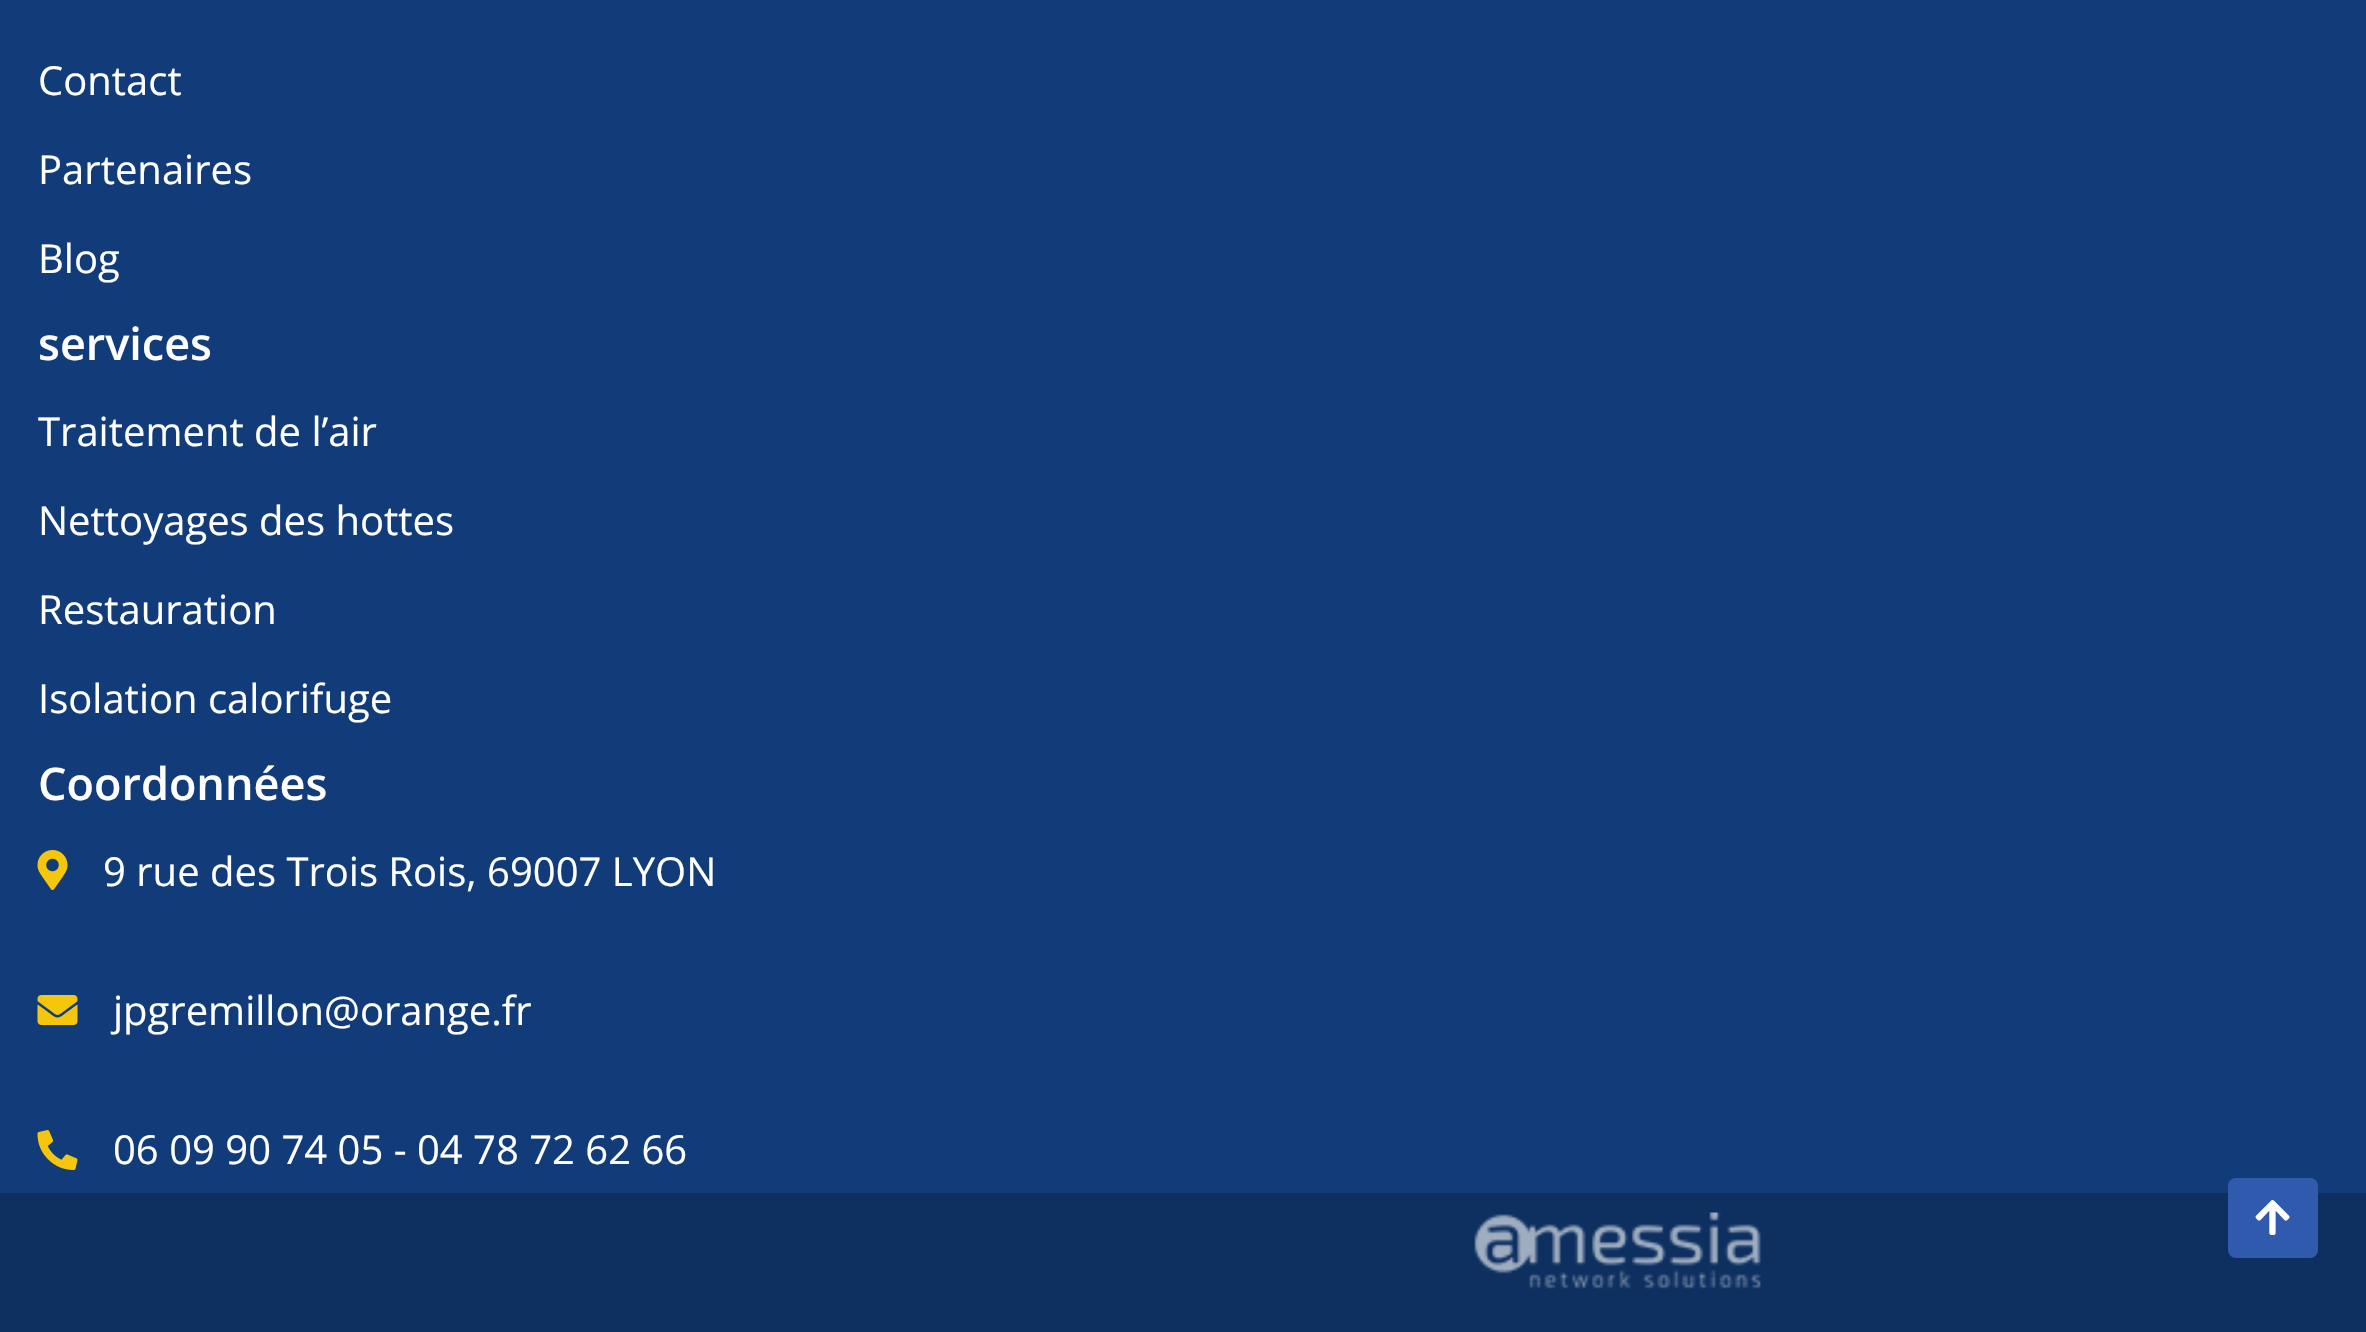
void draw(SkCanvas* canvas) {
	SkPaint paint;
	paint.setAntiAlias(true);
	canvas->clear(0xff113c79);
	SkFont f1(fontMgr->matchFamilyStyle("Open Sans", SkFontStyle::Normal()), 40);
	f1.setSubpixel(true);
	paint.setColor(0xffffffff);
	canvas->drawString("Contact", 38, 95, f1, paint);
	canvas->drawString("Partenaires", 38, 184, f1, paint);
	canvas->drawString("Blog", 38, 273, f1, paint);
	SkFont f2(fontMgr->matchFamilyStyle("Open Sans", SkFontStyle(600, SkFontStyle::kNormal_Width, SkFontStyle::kUpright_Slant)), 45);
	f2.setSubpixel(true);
	canvas->drawString("services", 38, 360, f2, paint);
	canvas->drawString("Traitement de l’air", 38, 446, f1, paint);
	canvas->drawString("Nettoyages des hottes", 38, 535, f1, paint);
	canvas->drawString("Restauration", 38, 624, f1, paint);
	canvas->drawString("Isolation calorifuge", 38, 713, f1, paint);
	canvas->drawString("Coordonnées", 38, 800, f2, paint);
	canvas->drawImageRect(SkImages::DeferredFromEncodedData(SkData::MakeFromFileName("img1.png")), SkRect::MakeXYWH(37, 850, 31, 40), SkSamplingOptions());
	canvas->drawString("9 rue des Trois Rois, 69007 LYON", 103, 886, f1, paint);
	canvas->drawImageRect(SkImages::DeferredFromEncodedData(SkData::MakeFromFileName("img2.png")), SkRect::MakeXYWH(37, 995, 41, 30), SkSamplingOptions());
	canvas->drawString("jpgremillon@orange.fr", 113, 1025, f1, paint);
	canvas->drawImageRect(SkImages::DeferredFromEncodedData(SkData::MakeFromFileName("img3.png")), SkRect::MakeXYWH(37, 1130, 41, 40), SkSamplingOptions());
	canvas->drawString("06 09 90 74 05 - 04 78 72 62 66", 113, 1164, f1, paint);
	paint.setColor(0xff0e3061);
	canvas->drawRect(SkRect::MakeXYWH(0, 1193, 2366, 139), paint);
	canvas->drawImageRect(SkImages::DeferredFromEncodedData(SkData::MakeFromFileName("img4.png")), SkRect::MakeXYWH(1474, 1212, 287, 77), SkSamplingOptions());
	paint.setColor(0xff2f5aae);
	canvas->drawRoundRect(SkRect::MakeXYWH(2228, 1178, 90, 80), 8, 8, paint);
	canvas->drawImageRect(SkImages::DeferredFromEncodedData(SkData::MakeFromFileName("img5.png")), SkRect::MakeXYWH(2255, 1200, 35, 35), SkSamplingOptions());
}
